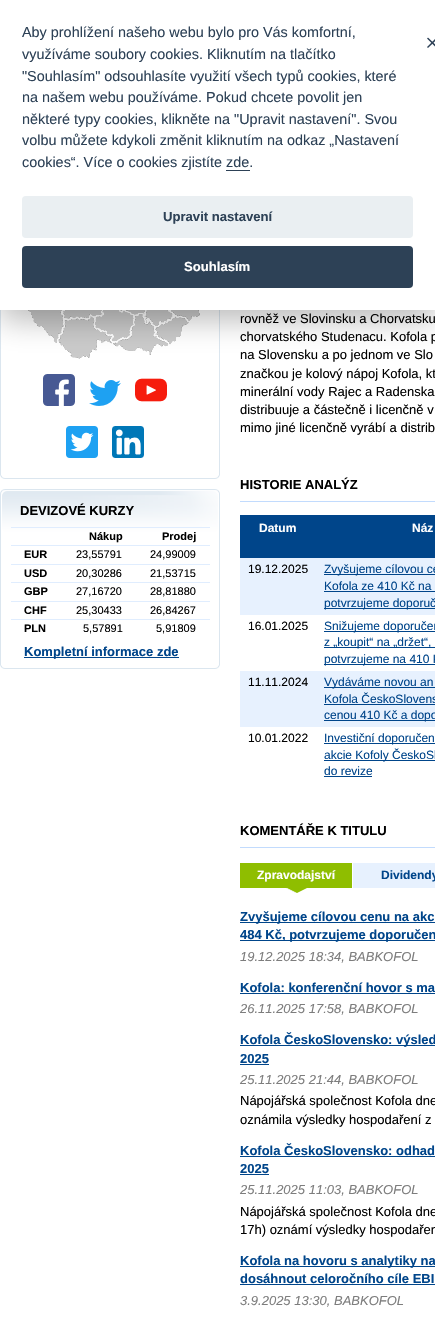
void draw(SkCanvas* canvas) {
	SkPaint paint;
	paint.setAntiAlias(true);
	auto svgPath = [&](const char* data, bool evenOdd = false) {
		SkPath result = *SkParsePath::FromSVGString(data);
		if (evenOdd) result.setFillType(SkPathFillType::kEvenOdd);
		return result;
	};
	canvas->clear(0xffffffff);
	canvas->drawImageRect(SkImages::DeferredFromEncodedData(SkData::MakeFromFileName("img1.png")), SkRect::MakeXYWH(0, 310, 220, 165), SkSamplingOptions());
	paint.setColor(0xffcacaca);
	canvas->drawRect(SkRect::MakeXYWH(29, 310, 170, 48), paint);
	canvas->drawImageRect(SkImages::DeferredFromEncodedData(SkData::MakeFromFileName("img3.png")), SkRect::MakeXYWH(20, 310, 180, 49), SkSamplingOptions());
	paint.setColor(0x47020203);
	paint.setMaskFilter(SkMaskFilter::MakeBlur(kNormal_SkBlurStyle, 15));
	canvas->drawRect(SkRect::MakeXYWH(0, 10, 435, 310), paint);
	paint.setMaskFilter(nullptr);
	paint.setColor(0xffffffff);
	canvas->drawRect(SkRect::MakeXYWH(0, 0, 435, 310), paint);
	SkFont f1(fontMgr->matchFamilyStyle("Liberation Sans", SkFontStyle::Normal()), 14.4);
	f1.setSubpixel(true);
	paint.setColor(0xff2d4156);
	canvas->drawString("Aby prohlížení našeho webu bylo pro Vás komfortní,", 22, 37, f1, paint);
	canvas->drawString("využíváme soubory cookies. Kliknutím na tlačítko", 22, 59, f1, paint);
	canvas->drawString("\"Souhlasím\" odsouhlasíte využití všech typů cookies, které", 22, 81, f1, paint);
	canvas->drawString("na našem webu používáme. Pokud chcete povolit jen", 22, 102, f1, paint);
	canvas->drawString("některé typy cookies, klikněte na \"Upravit nastavení\". Svou", 22, 124, f1, paint);
	canvas->drawString("volbu můžete kdykoli změnit kliknutím na odkaz „Nastavení", 22, 145, f1, paint);
	canvas->drawString("cookies“. Více o cookies zjistíte zde.", 22, 167, f1, paint);
	canvas->drawRect(SkRect::MakeXYWH(226, 170, 24, 1), paint);
	paint.setColor(0xffeaeff2);
	canvas->drawRoundRect(SkRect::MakeXYWH(22, 196, 391, 42), 4, 4, paint);
	SkFont f2(fontMgr->matchFamilyStyle("Liberation Sans", SkFontStyle::Bold()), 13.1);
	f2.setSubpixel(true);
	paint.setColor(0xff2d4156);
	canvas->drawString("Upravit nastavení", 163, 221, f2, paint);
	canvas->drawRoundRect(SkRect::MakeXYWH(22, 246, 391, 42), 4, 4, paint);
	paint.setColor(0xffffffff);
	canvas->drawString("Souhlasím", 184, 271, f2, paint);
	paint.setColor(0xff2d4156);
	canvas->drawPath(svgPath("M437.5 38C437.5 38 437.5 38.5 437.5 39L428.5 47.5C428 48 428 48 427.5 47.5C427 47.5 427 47 427.5 46.5L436 38C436.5 37.5 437 37.5 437.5 38Z"), paint);
	canvas->drawPath(svgPath("M427.5 38C428 37.5 428 37.5 428.5 38L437.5 46.5C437.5 47 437.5 47.5 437.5 47.5C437 48 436.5 48 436 47.5L427.5 39C427 38.5 427 38 427.5 38Z"), paint);
	canvas->drawImageRect(SkImages::DeferredFromEncodedData(SkData::MakeFromFileName("img2.png")), SkRect::MakeXYWH(0, 475, 220, 4), SkSamplingOptions());
	canvas->drawImageRect(SkImages::DeferredFromEncodedData(SkData::MakeFromFileName("img4.png")), SkRect::MakeXYWH(43, 374, 32, 32), SkSamplingOptions());
	canvas->drawImageRect(SkImages::DeferredFromEncodedData(SkData::MakeFromFileName("img5.png")), SkRect::MakeXYWH(89, 380, 32, 26), SkSamplingOptions());
	canvas->drawImageRect(SkImages::DeferredFromEncodedData(SkData::MakeFromFileName("img6.png")), SkRect::MakeXYWH(135, 378, 32, 24), SkSamplingOptions());
	canvas->drawImageRect(SkImages::DeferredFromEncodedData(SkData::MakeFromFileName("img7.png")), SkRect::MakeXYWH(66, 426, 32, 32), SkSamplingOptions());
	canvas->drawImageRect(SkImages::DeferredFromEncodedData(SkData::MakeFromFileName("img8.png")), SkRect::MakeXYWH(112, 426, 32, 32), SkSamplingOptions());
	canvas->drawImageRect(SkImages::DeferredFromEncodedData(SkData::MakeFromFileName("img9.png")), SkRect::MakeXYWH(0, 489, 220, 176), SkSamplingOptions());
	canvas->drawImageRect(SkImages::DeferredFromEncodedData(SkData::MakeFromFileName("img2.png")), SkRect::MakeXYWH(0, 665, 220, 4), SkSamplingOptions());
	SkFont f3(fontMgr->matchFamilyStyle("Liberation Sans", SkFontStyle::Bold()), 13);
	f3.setSubpixel(true);
	paint.setColor(0xff000000);
	canvas->drawString("DEVIZOVÉ KURZY", 20, 515, f3, paint);
	paint.setColor(0xffe0edfe);
	canvas->drawRect(SkRect::MakeXYWH(11, 527, 199, 1), paint);
	SkFont f4(fontMgr->matchFamilyStyle("Liberation Sans", SkFontStyle::Bold()), 11);
	f4.setSubpixel(true);
	paint.setColor(0xff000000);
	canvas->drawString("Nákup", 89, 540, f4, paint);
	canvas->drawString("Prodej", 162, 540, f4, paint);
	canvas->drawString("EUR", 24, 558, f4, paint);
	SkFont f5(fontMgr->matchFamilyStyle("Liberation Sans", SkFontStyle::Normal()), 11);
	f5.setSubpixel(true);
	canvas->drawString("23,55791", 76, 558, f5, paint);
	paint.setColor(0xffe0edfe);
	canvas->drawRect(SkRect::MakeXYWH(11, 545, 199, 1), paint);
	paint.setColor(0xff000000);
	canvas->drawString("24,99009", 150, 558, f5, paint);
	canvas->drawString("USD", 24, 577, f4, paint);
	canvas->drawString("20,30286", 76, 577, f5, paint);
	paint.setColor(0xffe0edfe);
	canvas->drawRect(SkRect::MakeXYWH(11, 564, 199, 1), paint);
	paint.setColor(0xff000000);
	canvas->drawString("21,53715", 150, 577, f5, paint);
	canvas->drawString("GBP", 24, 595, f4, paint);
	canvas->drawString("27,16720", 76, 595, f5, paint);
	paint.setColor(0xffe0edfe);
	canvas->drawRect(SkRect::MakeXYWH(11, 582, 199, 1), paint);
	paint.setColor(0xff000000);
	canvas->drawString("28,81880", 150, 595, f5, paint);
	canvas->drawString("CHF", 24, 614, f4, paint);
	canvas->drawString("25,30433", 76, 614, f5, paint);
	paint.setColor(0xffe0edfe);
	canvas->drawRect(SkRect::MakeXYWH(11, 601, 199, 1), paint);
	paint.setColor(0xff000000);
	canvas->drawString("26,84267", 150, 614, f5, paint);
	canvas->drawString("PLN", 24, 632, f4, paint);
	canvas->drawString("5,57891", 83, 632, f5, paint);
	paint.setColor(0xffe0edfe);
	canvas->drawRect(SkRect::MakeXYWH(11, 619, 199, 1), paint);
	paint.setColor(0xff000000);
	canvas->drawString("5,91809", 156, 632, f5, paint);
	paint.setColor(0xff00458a);
	canvas->drawRect(SkRect::MakeXYWH(24, 657, 155, 1), paint);
	canvas->drawString("Kompletní informace zde", 24, 656, f3, paint);
	SkFont f6(fontMgr->matchFamilyStyle("Liberation Sans", SkFontStyle::Normal()), 13);
	f6.setSubpixel(true);
	paint.setColor(0xff000000);
	canvas->drawString("rovněž ve Slovinsku a Chorvatsku", 240, 323, f6, paint);
	canvas->drawString("chorvatského Studenacu. Kofola p", 240, 341, f6, paint);
	canvas->drawString("na Slovensku a po jednom ve Slo", 240, 359, f6, paint);
	canvas->drawString("značkou je kolový nápoj Kofola, kt", 240, 378, f6, paint);
	canvas->drawString("minerální vody Rajec a Radenska", 240, 396, f6, paint);
	canvas->drawString("distribuuje a částečně i licenčně v", 240, 414, f6, paint);
	canvas->drawString("mimo jiné licenčně vyrábí a distrib", 240, 432, f6, paint);
	paint.setColor(0xffc2dbfd);
	canvas->drawRect(SkRect::MakeXYWH(240, 501, 195, 1), paint);
	paint.setColor(0xff000000);
	canvas->drawString("HISTORIE ANALÝZ", 240, 489, f3, paint);
	paint.setColor(0xff00458a);
	canvas->drawRect(SkRect::MakeXYWH(240, 515, 195, 43), paint);
	SkFont f7(fontMgr->matchFamilyStyle("Liberation Sans", SkFontStyle::Bold()), 12);
	f7.setSubpixel(true);
	paint.setColor(0xffffffff);
	canvas->drawString("Datum", 259, 532, f7, paint);
	canvas->drawString("Náz", 412, 532, f7, paint);
	paint.setColor(0xffe7f1fe);
	canvas->drawRect(SkRect::MakeXYWH(240, 558, 195, 57), paint);
	SkFont f8(fontMgr->matchFamilyStyle("Liberation Sans", SkFontStyle::Normal()), 12);
	f8.setSubpixel(true);
	paint.setColor(0xff000000);
	canvas->drawString("19.12.2025", 248, 573, f8, paint);
	paint.setColor(0xff00458a);
	canvas->drawRect(SkRect::MakeXYWH(324, 574, 111, 1), paint);
	canvas->drawString("Zvyšujeme cílovou ce", 324, 573, f8, paint);
	canvas->drawString("Kofola ze 410 Kč na", 324, 590, f8, paint);
	canvas->drawRect(SkRect::MakeXYWH(324, 591, 111, 1), paint);
	canvas->drawRect(SkRect::MakeXYWH(324, 608, 111, 1), paint);
	canvas->drawString("potvrzujeme doporuč", 324, 607, f8, paint);
	paint.setColor(0xff000000);
	canvas->drawString("16.01.2025", 248, 630, f8, paint);
	paint.setColor(0xff00458a);
	canvas->drawRect(SkRect::MakeXYWH(324, 631, 111, 1), paint);
	canvas->drawString("Snižujeme doporučen", 324, 630, f8, paint);
	canvas->drawRect(SkRect::MakeXYWH(324, 647, 111, 1), paint);
	canvas->drawString("z „koupit“ na „držet“, c", 324, 646, f8, paint);
	canvas->drawRect(SkRect::MakeXYWH(324, 664, 111, 1), paint);
	canvas->drawString("potvrzujeme na 410 K", 324, 663, f8, paint);
	paint.setColor(0xffe7f1fe);
	canvas->drawRect(SkRect::MakeXYWH(240, 671, 195, 56), paint);
	paint.setColor(0xff000000);
	canvas->drawString("11.11.2024", 248, 686, f8, paint);
	paint.setColor(0xff00458a);
	canvas->drawRect(SkRect::MakeXYWH(324, 687, 111, 1), paint);
	canvas->drawString("Vydáváme novou an", 324, 686, f8, paint);
	canvas->drawString("Kofola ČeskoSlovens", 324, 703, f8, paint);
	canvas->drawRect(SkRect::MakeXYWH(324, 704, 111, 1), paint);
	canvas->drawRect(SkRect::MakeXYWH(324, 720, 111, 1), paint);
	canvas->drawString("cenou 410 Kč a dopo", 324, 719, f8, paint);
	paint.setColor(0xff000000);
	canvas->drawString("10.01.2022", 248, 742, f8, paint);
	paint.setColor(0xff00458a);
	canvas->drawRect(SkRect::MakeXYWH(324, 743, 111, 1), paint);
	canvas->drawString("Investiční doporučen", 324, 742, f8, paint);
	canvas->drawRect(SkRect::MakeXYWH(324, 760, 111, 1), paint);
	canvas->drawString("akcie Kofoly ČeskoSl", 324, 759, f8, paint);
	canvas->drawString("do revize", 324, 775, f8, paint);
	canvas->drawRect(SkRect::MakeXYWH(324, 776, 48, 1), paint);
	paint.setColor(0xffc2dbfd);
	canvas->drawRect(SkRect::MakeXYWH(240, 847, 195, 1), paint);
	paint.setColor(0xff000000);
	canvas->drawString("KOMENTÁŘE K TITULU", 240, 835, f3, paint);
	canvas->drawImageRect(SkImages::DeferredFromEncodedData(SkData::MakeFromFileName("img10.png")), SkRect::MakeXYWH(286, 888, 21, 5), SkSamplingOptions());
	paint.setColor(0xff8fbe00);
	canvas->drawRect(SkRect::MakeXYWH(240, 863, 112, 25), paint);
	paint.setColor(0xffffffff);
	canvas->drawString("Zpravodajství", 257, 879, f7, paint);
	paint.setColor(0xffe7f1fe);
	canvas->drawRect(SkRect::MakeXYWH(353, 863, 82, 25), paint);
	paint.setColor(0xff00458a);
	canvas->drawString("Dividendy", 381, 879, f7, paint);
	canvas->drawRect(SkRect::MakeXYWH(240, 922, 195, 1), paint);
	canvas->drawString("Zvyšujeme cílovou cenu na akc", 240, 921, f3, paint);
	canvas->drawRect(SkRect::MakeXYWH(240, 940, 195, 1), paint);
	canvas->drawString("484 Kč, potvrzujeme doporučen", 240, 939, f3, paint);
	SkFont f9(fontMgr->matchFamilyStyle("Liberation Sans", SkFontStyle::Italic()), 13);
	f9.setSubpixel(true);
	paint.setColor(0xff7d7d7d);
	canvas->drawString("19.12.2025 18:34, BABKOFOL", 240, 961, f9, paint);
	paint.setColor(0xff00458a);
	canvas->drawString("Kofola: konferenční hovor s ma", 240, 992, f3, paint);
	canvas->drawRect(SkRect::MakeXYWH(240, 993, 195, 1), paint);
	paint.setColor(0xff7d7d7d);
	canvas->drawString("26.11.2025 17:58, BABKOFOL", 240, 1013, f9, paint);
	paint.setColor(0xff00458a);
	canvas->drawRect(SkRect::MakeXYWH(240, 1045, 195, 1), paint);
	canvas->drawString("Kofola ČeskoSlovensko: výsled", 240, 1044, f3, paint);
	canvas->drawString("2025", 240, 1063, f3, paint);
	canvas->drawRect(SkRect::MakeXYWH(240, 1064, 29, 1), paint);
	paint.setColor(0xff7d7d7d);
	canvas->drawString("25.11.2025 21:44, BABKOFOL", 240, 1084, f9, paint);
	paint.setColor(0xff000000);
	canvas->drawString("Nápojářská společnost Kofola dne", 240, 1105, f6, paint);
	canvas->drawString("oznámila výsledky hospodaření z", 240, 1124, f6, paint);
	paint.setColor(0xff00458a);
	canvas->drawString("Kofola ČeskoSlovensko: odhad", 240, 1155, f3, paint);
	canvas->drawRect(SkRect::MakeXYWH(240, 1156, 195, 1), paint);
	canvas->drawString("2025", 240, 1173, f3, paint);
	canvas->drawRect(SkRect::MakeXYWH(240, 1174, 29, 1), paint);
	paint.setColor(0xff7d7d7d);
	canvas->drawString("25.11.2025 11:03, BABKOFOL", 240, 1194, f9, paint);
	paint.setColor(0xff000000);
	canvas->drawString("Nápojářská společnost Kofola dne", 240, 1216, f6, paint);
	canvas->drawString("17h) oznámí výsledky hospodařen", 240, 1234, f6, paint);
	paint.setColor(0xff00458a);
	canvas->drawRect(SkRect::MakeXYWH(240, 1266, 195, 1), paint);
	canvas->drawString("Kofola na hovoru s analytiky na", 240, 1265, f3, paint);
	canvas->drawString("dosáhnout celoročního cíle EBI", 240, 1283, f3, paint);
	canvas->drawRect(SkRect::MakeXYWH(240, 1284, 195, 1), paint);
	paint.setColor(0xff7d7d7d);
	canvas->drawString("3.9.2025 13:30, BABKOFOL", 240, 1305, f9, paint);
}
